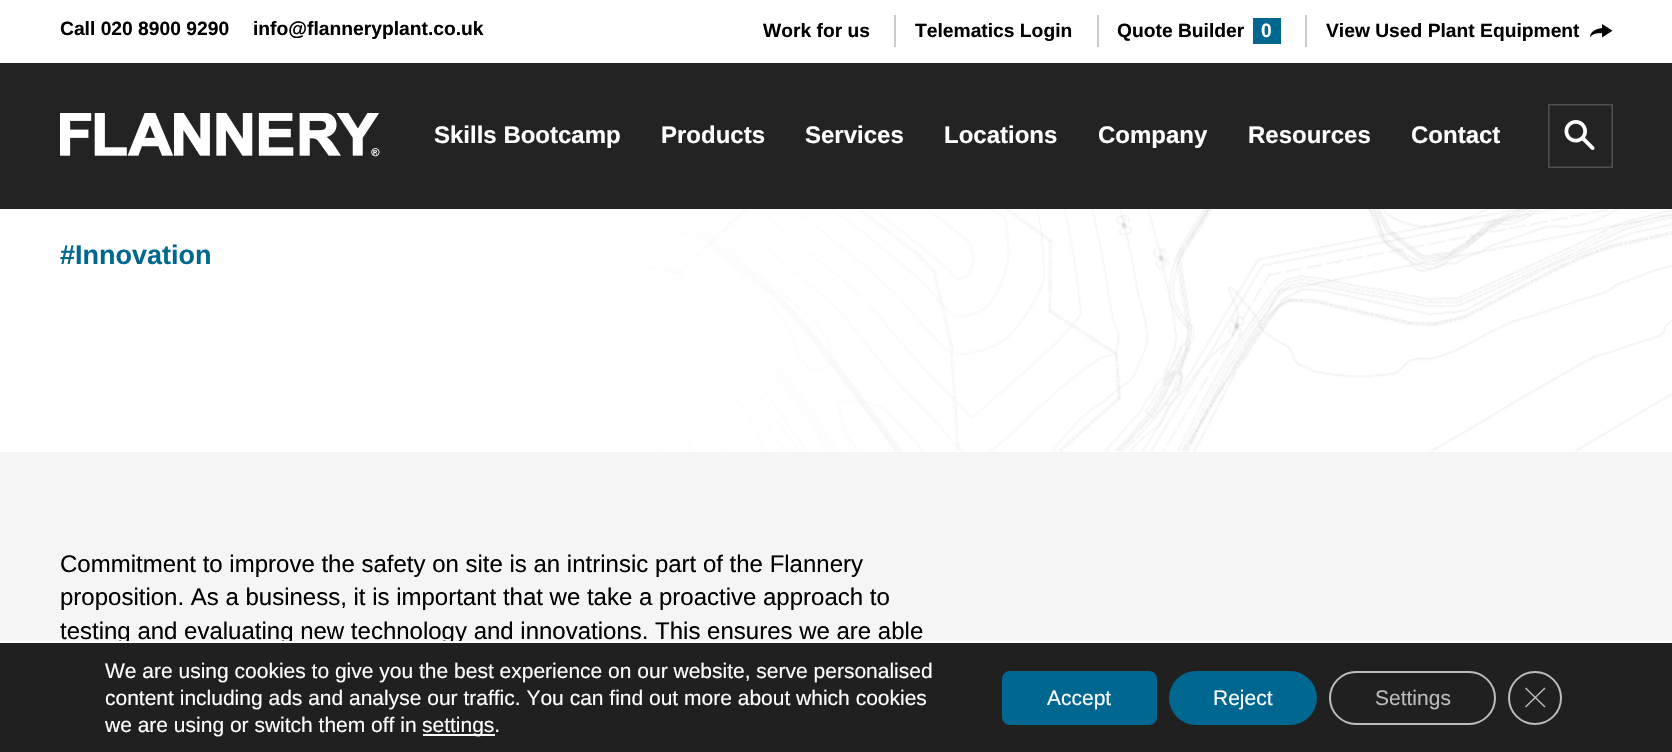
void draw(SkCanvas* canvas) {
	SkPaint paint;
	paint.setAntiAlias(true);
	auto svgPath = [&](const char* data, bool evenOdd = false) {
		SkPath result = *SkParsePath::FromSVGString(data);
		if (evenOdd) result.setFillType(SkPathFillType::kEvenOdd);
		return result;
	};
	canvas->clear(0xfff5f5f5);
	paint.setColor(0xffffffff);
	canvas->drawRect(SkRect::MakeXYWH(0, 0, 1672, 63), paint);
	SkFont f1(fontMgr->matchFamilyStyle("Liberation Sans", SkFontStyle::Bold()), 19.25);
	f1.setSubpixel(true);
	paint.setColor(0xff000000);
	canvas->drawString("Call 020 8900 9290", 60, 35, f1, paint);
	canvas->drawString("info@flanneryplant.co.uk", 253, 35, f1, paint);
	canvas->drawString("Work for us", 763, 37, f1, paint);
	paint.setColor(0xffcccccc);
	canvas->drawRect(SkRect::MakeXYWH(894, 15, 2, 32), paint);
	paint.setColor(0xff000000);
	canvas->drawString("Telematics Login", 915, 37, f1, paint);
	paint.setColor(0xffcccccc);
	canvas->drawRect(SkRect::MakeXYWH(1097, 15, 2, 32), paint);
	paint.setColor(0xff000000);
	canvas->drawString("Quote Builder", 1117, 37, f1, paint);
	paint.setColor(0xff006890);
	canvas->drawRect(SkRect::MakeXYWH(1253, 18, 28, 26), paint);
	paint.setColor(0xffffffff);
	canvas->drawString("0", 1261, 37, f1, paint);
	paint.setColor(0xffcccccc);
	canvas->drawRect(SkRect::MakeXYWH(1305, 15, 2, 32), paint);
	paint.setColor(0xff000000);
	canvas->drawString("View Used Plant Equipment", 1326, 37, f1, paint);
	canvas->drawImageRect(SkImages::DeferredFromEncodedData(SkData::MakeFromFileName("img1.png")), SkRect::MakeXYWH(1590, 24, 23, 14), SkSamplingOptions());
	paint.setColor(0xff232323);
	canvas->drawRect(SkRect::MakeXYWH(0, 63, 1672, 146), paint);
	canvas->drawImageRect(SkImages::DeferredFromEncodedData(SkData::MakeFromFileName("img2.png")), SkRect::MakeXYWH(60, 113, 320, 44), SkSamplingOptions());
	SkFont f2(fontMgr->matchFamilyStyle("Liberation Sans", SkFontStyle::Bold()), 24);
	f2.setSubpixel(true);
	paint.setColor(0xffffffff);
	canvas->drawString("Skills Bootcamp", 434, 143, f2, paint);
	canvas->drawString("Products", 661, 143, f2, paint);
	canvas->drawString("Services", 805, 143, f2, paint);
	canvas->drawString("Locations", 944, 143, f2, paint);
	canvas->drawString("Company", 1098, 143, f2, paint);
	canvas->drawString("Resources", 1248, 143, f2, paint);
	canvas->drawString("Contact", 1411, 143, f2, paint);
	canvas->drawImageRect(SkImages::DeferredFromEncodedData(SkData::MakeFromFileName("img3.png")), SkRect::MakeXYWH(1548, 104, 65, 64), SkSamplingOptions());
	canvas->drawRect(SkRect::MakeXYWH(590, 209, 1082, 243), paint);
	canvas->drawImageRect(SkImages::DeferredFromEncodedData(SkData::MakeFromFileName("img4.png")), SkRect::MakeXYWH(590, 209, 1082, 243), SkSamplingOptions());
	{
		const SkColor colors[] = {0xffffffff, 0x00ffffff};
		const float stops[] = {0.35, 0.8};
		const SkPoint ends[] = {{0, 166}, {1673, 166}};
		paint.setShader(SkGradientShader::MakeLinear(ends, colors, stops, 2, SkTileMode::kClamp));
		paint.setAlpha(255);
	}
	canvas->drawRect(SkRect::MakeXYWH(0, 209, 1266, 243), paint);
	SkFont f3(fontMgr->matchFamilyStyle("Liberation Sans", SkFontStyle::Bold()), 27);
	f3.setSubpixel(true);
	paint.setShader(nullptr);
	paint.setColor(0xff006890);
	canvas->drawString("#Innovation", 60, 264, f3, paint);
	SkFont f4(fontMgr->matchFamilyStyle("Liberation Sans", SkFontStyle::Normal()), 24);
	f4.setSubpixel(true);
	paint.setColor(0xff000000);
	canvas->drawString("Commitment to improve the safety on site is an intrinsic part of the Flannery", 60, 572, f4, paint);
	canvas->drawString("proposition. As a business, it is important that we take a proactive approach to", 60, 605, f4, paint);
	canvas->drawString("testing and evaluating new technology and innovations. This ensures we are able", 60, 639, f4, paint);
	paint.setColor(0xff202020);
	canvas->drawRect(SkRect::MakeXYWH(0, 643, 1672, 109), paint);
	paint.setColor(0xffffffff);
	canvas->drawRect(SkRect::MakeXYWH(0, 641, 1672, 2), paint);
	SkFont f5(fontMgr->matchFamilyStyle("Liberation Sans", SkFontStyle::Normal()), 21);
	f5.setSubpixel(true);
	canvas->drawString("We are using cookies to give you the best experience on our website, serve personalised", 105, 678, f5, paint);
	canvas->drawString("content including ads and analyse our traffic. You can find out more about which cookies", 105, 705, f5, paint);
	canvas->drawString("we are using or switch them off in", 105, 732, f5, paint);
	canvas->drawRect(SkRect::MakeXYWH(423, 734, 72, 2), paint);
	canvas->drawString("settings.", 422, 732, f5, paint);
	paint.setColor(0xff006890);
	canvas->drawRoundRect(SkRect::MakeXYWH(1002, 671, 155, 54), 8, 8, paint);
	paint.setColor(0xffffffff);
	canvas->drawString("Accept", 1047, 705, f5, paint);
	paint.setColor(0xff006890);
	canvas->drawRoundRect(SkRect::MakeXYWH(1169, 671, 148, 54), 27, 27, paint);
	paint.setColor(0xffffffff);
	canvas->drawString("Reject", 1213, 705, f5, paint);
	paint.setStroke(true);
	paint.setStrokeWidth(2);
	paint.setColor(0xffbcbcbc);
	canvas->drawRoundRect(SkRect::MakeXYWH(1330, 672, 165, 52), 26, 26, paint);
	paint.setStroke(false);
	canvas->drawString("Settings", 1375, 705, f5, paint);
	paint.setStroke(true);
	canvas->drawCircle(1535, 698, 26, paint);
	paint.setStroke(false);
	canvas->drawPath(svgPath("M1544.5 687.5L1545.5 688.5L1526 707.5L1525 706.5Z"), paint);
	canvas->drawPath(svgPath("M1525 688.5L1526 687.5L1545.5 706.5L1544.5 707.5Z"), paint);
}
